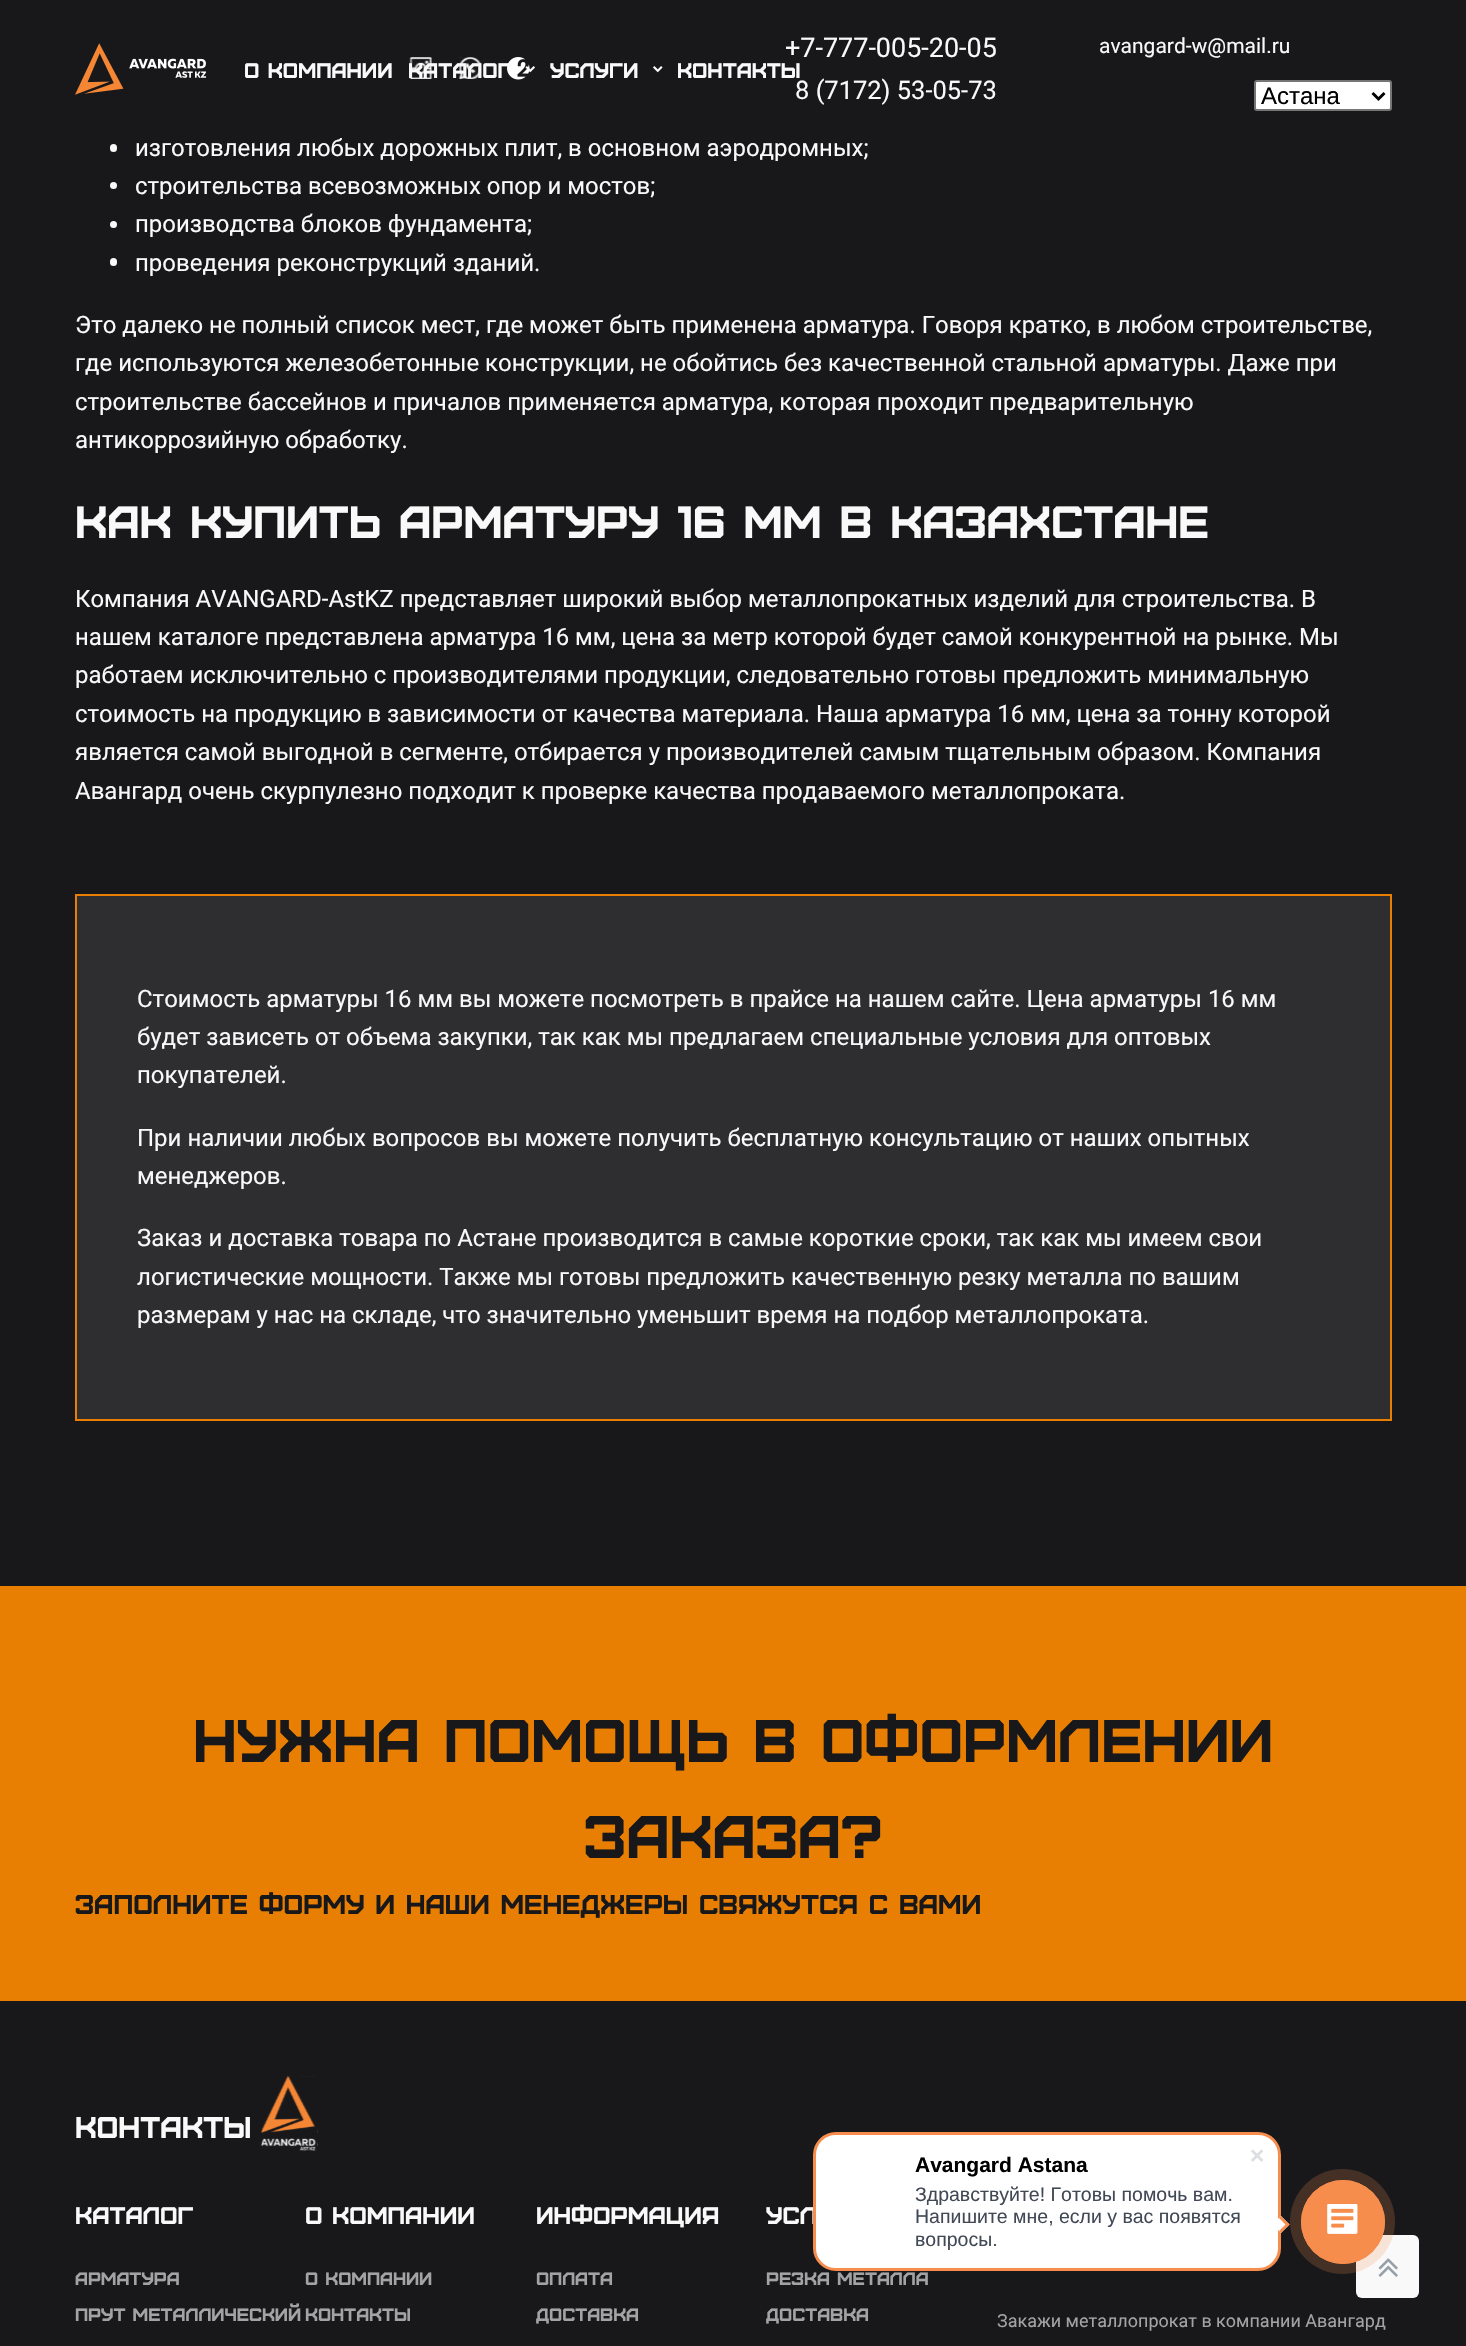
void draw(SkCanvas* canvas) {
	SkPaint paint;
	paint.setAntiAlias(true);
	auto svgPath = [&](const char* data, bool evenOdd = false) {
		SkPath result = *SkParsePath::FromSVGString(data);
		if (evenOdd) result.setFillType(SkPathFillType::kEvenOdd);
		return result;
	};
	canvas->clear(0xff18181b);
	SkFont f1(fontMgr->matchFamilyStyle("Roboto", SkFontStyle::Normal()), 24);
	f1.setSubpixel(true);
	paint.setColor(0xfff9f9f9);
	canvas->drawString("изготовления любых дорожных плит, в основном аэродромных;", 135, 156, f1, paint);
	paint.setColor(0xff18181b);
	canvas->drawRect(SkRect::MakeXYWH(340, 137, 3, 1), paint);
	canvas->drawImageRect(SkImages::DeferredFromEncodedData(SkData::MakeFromFileName("img1.png")), SkRect::MakeXYWH(75, 43, 132, 52), SkSamplingOptions());
	canvas->drawImageRect(SkImages::DeferredFromEncodedData(SkData::MakeFromFileName("img2.png")), SkRect::MakeXYWH(409, 57, 23, 22), SkSamplingOptions());
	canvas->drawImageRect(SkImages::DeferredFromEncodedData(SkData::MakeFromFileName("img3.png")), SkRect::MakeXYWH(459, 57, 23, 22), SkSamplingOptions());
	canvas->drawImageRect(SkImages::DeferredFromEncodedData(SkData::MakeFromFileName("img4.png")), SkRect::MakeXYWH(507, 57, 23, 23), SkSamplingOptions());
	SkFont f2(fontMgr->matchFamilyStyle("Roboto", SkFontStyle::Normal()), 27);
	f2.setSubpixel(true);
	paint.setColor(0xfff9f9f9);
	canvas->drawString("+7-777-005-20-05", 785, 57, f2, paint);
	SkFont f3(fontMgr->matchFamilyStyle("Roboto", SkFontStyle::Normal()), 25.5);
	f3.setSubpixel(true);
	canvas->drawString("8 (7172) 53-05-73", 795, 99, f3, paint);
	SkFont f4(fontMgr->matchFamilyStyle("Roboto", SkFontStyle::Normal()), 21);
	f4.setSubpixel(true);
	canvas->drawString("avangard-w@mail.ru", 1099, 53, f4, paint);
	paint.setColor(0xffffffff);
	canvas->drawRoundRect(SkRect::MakeXYWH(1255, 81, 136, 29), 2, 2, paint);
	paint.setStroke(true);
	paint.setStrokeWidth(2);
	paint.setColor(0xff767676);
	canvas->drawRoundRect(SkRect::MakeXYWH(1255, 81, 136, 29), 2, 2, paint);
	paint.setStrokeWidth(3);
	paint.setColor(0xff000000);
	canvas->drawPath(svgPath("M1372.5 93L1378.5 99L1384.5 93"), paint);
	SkFont f5(fontMgr->matchFamilyStyle("Liberation Sans", SkFontStyle::Normal()), 24);
	f5.setSubpixel(true);
	paint.setStroke(false);
	canvas->drawString("Астана", 1261, 104, f5, paint);
	SkFont f6(fontMgr->matchFamilyStyle("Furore", SkFontStyle::Normal()), 21);
	f6.setSubpixel(true);
	paint.setColor(0xfff9f9f9);
	canvas->drawString("О компании", 244, 78, f6, paint);
	canvas->drawString("Каталог", 408, 78, f6, paint);
	canvas->drawImageRect(SkImages::DeferredFromEncodedData(SkData::MakeFromFileName("img5.png")), SkRect::MakeXYWH(525, 66, 10, 7), SkSamplingOptions());
	canvas->drawString("Услуги", 550, 78, f6, paint);
	canvas->drawImageRect(SkImages::DeferredFromEncodedData(SkData::MakeFromFileName("img6.png")), SkRect::MakeXYWH(653, 66, 10, 7), SkSamplingOptions());
	canvas->drawString("Контакты", 677, 78, f6, paint);
	canvas->drawRoundRect(SkRect::MakeXYWH(110, 144, 7, 8), 3.5, 3.5, paint);
	canvas->drawCircle(113.5, 185.5, 3.5, paint);
	canvas->drawString("строительства всевозможных опор и мостов;", 135, 194, f1, paint);
	canvas->drawCircle(113.5, 224.5, 3.5, paint);
	canvas->drawString("производства блоков фундамента;", 135, 232, f1, paint);
	canvas->drawRoundRect(SkRect::MakeXYWH(110, 258, 7, 8), 3.5, 3.5, paint);
	canvas->drawString("проведения реконструкций зданий.", 135, 271, f1, paint);
	canvas->drawString("Это далеко не полный список мест, где может быть применена арматура. Говоря кратко, в любом строительстве,", 75, 333, f1, paint);
	canvas->drawString("где используются железобетонные конструкции, не обойтись без качественной стальной арматуры. Даже при", 75, 371, f1, paint);
	canvas->drawString("строительстве бассейнов и причалов применяется арматура, которая проходит предварительную", 75, 410, f1, paint);
	canvas->drawString("антикоррозийную обработку.", 75, 448, f1, paint);
	SkFont f7(fontMgr->matchFamilyStyle("Furore", SkFontStyle::Normal()), 45);
	f7.setSubpixel(true);
	canvas->drawString("Как купить арматуру 16 мм в Казахстане", 75, 538, f7, paint);
	canvas->drawString("Компания AVANGARD-AstKZ представляет широкий выбор металлопрокатных изделий для строительства. В", 75, 607, f1, paint);
	canvas->drawString("нашем каталоге представлена арматура 16 мм, цена за метр которой будет самой конкурентной на рынке. Мы", 75, 645, f1, paint);
	canvas->drawString("работаем исключительно с производителями продукции, следовательно готовы предложить минимальную", 75, 683, f1, paint);
	canvas->drawString("стоимость на продукцию в зависимости от качества материала. Наша арматура 16 мм, цена за тонну которой", 75, 722, f1, paint);
	canvas->drawString("является самой выгодной в сегменте, отбирается у производителей самым тщательным образом. Компания", 75, 760, f1, paint);
	canvas->drawString("Авангард очень скурпулезно подходит к проверке качества продаваемого металлопроката.", 75, 799, f1, paint);
	paint.setColor(0xff2e2e31);
	canvas->drawRect(SkRect::MakeXYWH(76, 895, 1315, 525), paint);
	paint.setStroke(true);
	paint.setStrokeWidth(2);
	paint.setColor(0xffe97f02);
	canvas->drawRect(SkRect::MakeXYWH(76, 895, 1315, 525), paint);
	paint.setStroke(false);
	paint.setColor(0xfff9f9f9);
	canvas->drawString("Стоимость арматуры 16 мм вы можете посмотреть в прайсе на нашем сайте. Цена арматуры 16 мм", 137, 1007, f1, paint);
	canvas->drawString("будет зависеть от объема закупки, так как мы предлагаем специальные условия для оптовых", 137, 1045, f1, paint);
	canvas->drawString("покупателей.", 137, 1083, f1, paint);
	canvas->drawString("При наличии любых вопросов вы можете получить бесплатную консультацию от наших опытных", 137, 1146, f1, paint);
	canvas->drawString("менеджеров.", 137, 1184, f1, paint);
	canvas->drawString("Заказ и доставка товара по Астане производится в самые короткие сроки, так как мы имеем свои", 137, 1246, f1, paint);
	canvas->drawString("логистические мощности. Также мы готовы предложить качественную резку металла по вашим", 137, 1285, f1, paint);
	canvas->drawString("размерам у нас на складе, что значительно уменьшит время на подбор металлопроката.", 137, 1323, f1, paint);
	paint.setColor(0xffe97f02);
	canvas->drawRect(SkRect::MakeXYWH(0, 1586, 1466, 415), paint);
	SkFont f8(fontMgr->matchFamilyStyle("Furore", SkFontStyle::Normal()), 60);
	f8.setSubpixel(true);
	paint.setColor(0xff18181b);
	canvas->drawString("Нужна помощь в оформлении", 193, 1762, f8, paint);
	canvas->drawString("заказа?", 584, 1858, f8, paint);
	SkFont f9(fontMgr->matchFamilyStyle("Furore", SkFontStyle::Normal()), 27);
	f9.setSubpixel(true);
	canvas->drawString("Заполните форму и наши менеджеры свяжутся с вами", 75, 1914, f9, paint);
	SkFont f10(fontMgr->matchFamilyStyle("Furore", SkFontStyle::Normal()), 30);
	f10.setSubpixel(true);
	paint.setColor(0xfff9f9f9);
	canvas->drawString("Контакты", 75, 2138, f10, paint);
	canvas->drawImageRect(SkImages::DeferredFromEncodedData(SkData::MakeFromFileName("img7.png")), SkRect::MakeXYWH(261, 2076, 57, 75), SkSamplingOptions());
	SkFont f11(fontMgr->matchFamilyStyle("Furore", SkFontStyle::Normal()), 24);
	f11.setSubpixel(true);
	canvas->drawString("каталог", 75, 2224, f11, paint);
	SkFont f12(fontMgr->matchFamilyStyle("Furore", SkFontStyle::Normal()), 18);
	f12.setSubpixel(true);
	paint.setColor(0xffa3a3a4);
	canvas->drawString("Арматура", 75, 2285, f12, paint);
	canvas->drawString("Прут металлический", 75, 2321, f12, paint);
	paint.setColor(0xfff9f9f9);
	canvas->drawString("о компании", 305, 2224, f11, paint);
	paint.setColor(0xffa3a3a4);
	canvas->drawString("О компании", 305, 2285, f12, paint);
	canvas->drawString("Контакты", 305, 2321, f12, paint);
	paint.setColor(0xfff9f9f9);
	canvas->drawString("информация", 536, 2224, f11, paint);
	paint.setColor(0xffa3a3a4);
	canvas->drawString("оплата", 536, 2285, f12, paint);
	canvas->drawString("доставка", 536, 2321, f12, paint);
	paint.setColor(0xfff9f9f9);
	canvas->drawString("усл", 766, 2224, f11, paint);
	paint.setColor(0xffa3a3a4);
	canvas->drawString("резка металла", 766, 2285, f12, paint);
	canvas->drawString("доставка", 766, 2321, f12, paint);
	paint.setColor(0xfff9f9fa);
	canvas->drawRoundRect(SkRect::MakeXYWH(1356, 2235, 63, 63), 6, 6, paint);
	canvas->drawImageRect(SkImages::DeferredFromEncodedData(SkData::MakeFromFileName("img8.png")), SkRect::MakeXYWH(1378, 2258, 20, 19), SkSamplingOptions());
	SkFont f13(fontMgr->matchFamilyStyle("Roboto", SkFontStyle::Normal()), 18);
	f13.setSubpixel(true);
	paint.setColor(0xffa3a3a4);
	canvas->drawString("Закажи металлопрокат в компании Авангард", 997, 2327, f13, paint);
	paint.setColor(0xffffffff);
	canvas->drawRoundRect(SkRect::MakeXYWH(814.5, 2133.5, 465, 136), 21.5, 21.5, paint);
	paint.setStroke(true);
	paint.setStrokeWidth(3);
	paint.setColor(0xfff78d4d);
	canvas->drawRoundRect(SkRect::MakeXYWH(814.5, 2133.5, 465, 136), 21.5, 21.5, paint);
	SkFont f14(fontMgr->matchFamilyStyle("Liberation Sans", SkFontStyle::Bold()), 21);
	f14.setSubpixel(true);
	paint.setStroke(false);
	paint.setColor(0xff000000);
	canvas->drawString("Avangard Astana", 915, 2172, f14, paint);
	SkFont f15(fontMgr->matchFamilyStyle("Liberation Sans", SkFontStyle::Normal()), 19.5);
	f15.setSubpixel(true);
	paint.setColor(0xff424956);
	canvas->drawString("Здравствуйте! Готовы помочь вам.", 915, 2201, f15, paint);
	canvas->drawString("Напишите мне, если у вас появятся", 915, 2223, f15, paint);
	canvas->drawString("вопросы.", 915, 2246, f15, paint);
	canvas->drawImageRect(SkImages::DeferredFromEncodedData(SkData::MakeFromFileName("img9.png")), SkRect::MakeXYWH(1251, 2149, 13, 13), SkSamplingOptions());
	paint.setColor(0xffffffff);
	canvas->drawPath(svgPath("M1272.5 2224.5L1281 2216L1289.5 2224.5L1281 2233Z"), paint);
	paint.setColor(0xfff78d4d);
	canvas->drawPath(svgPath("M1279 2218L1281 2216L1289.5 2224.5L1287.5 2226.5Z"), paint);
	canvas->drawPath(svgPath("M1279 2231L1287.5 2222.5L1289.5 2224.5L1281 2233Z"), paint);
	paint.setColor(0x33f78d4d);
	canvas->drawCircle(1342.5, 2221.5, 52.5, paint);
	paint.setStroke(true);
	paint.setStrokeWidth(1);
	paint.setColor(0xfff78d4d);
	canvas->drawCircle(1343, 2222, 41.5, paint);
	paint.setStroke(false);
	canvas->drawCircle(1343, 2222, 42, paint);
	canvas->drawImageRect(SkImages::DeferredFromEncodedData(SkData::MakeFromFileName("img10.png")), SkRect::MakeXYWH(1327, 2204, 31, 30), SkSamplingOptions());
}
